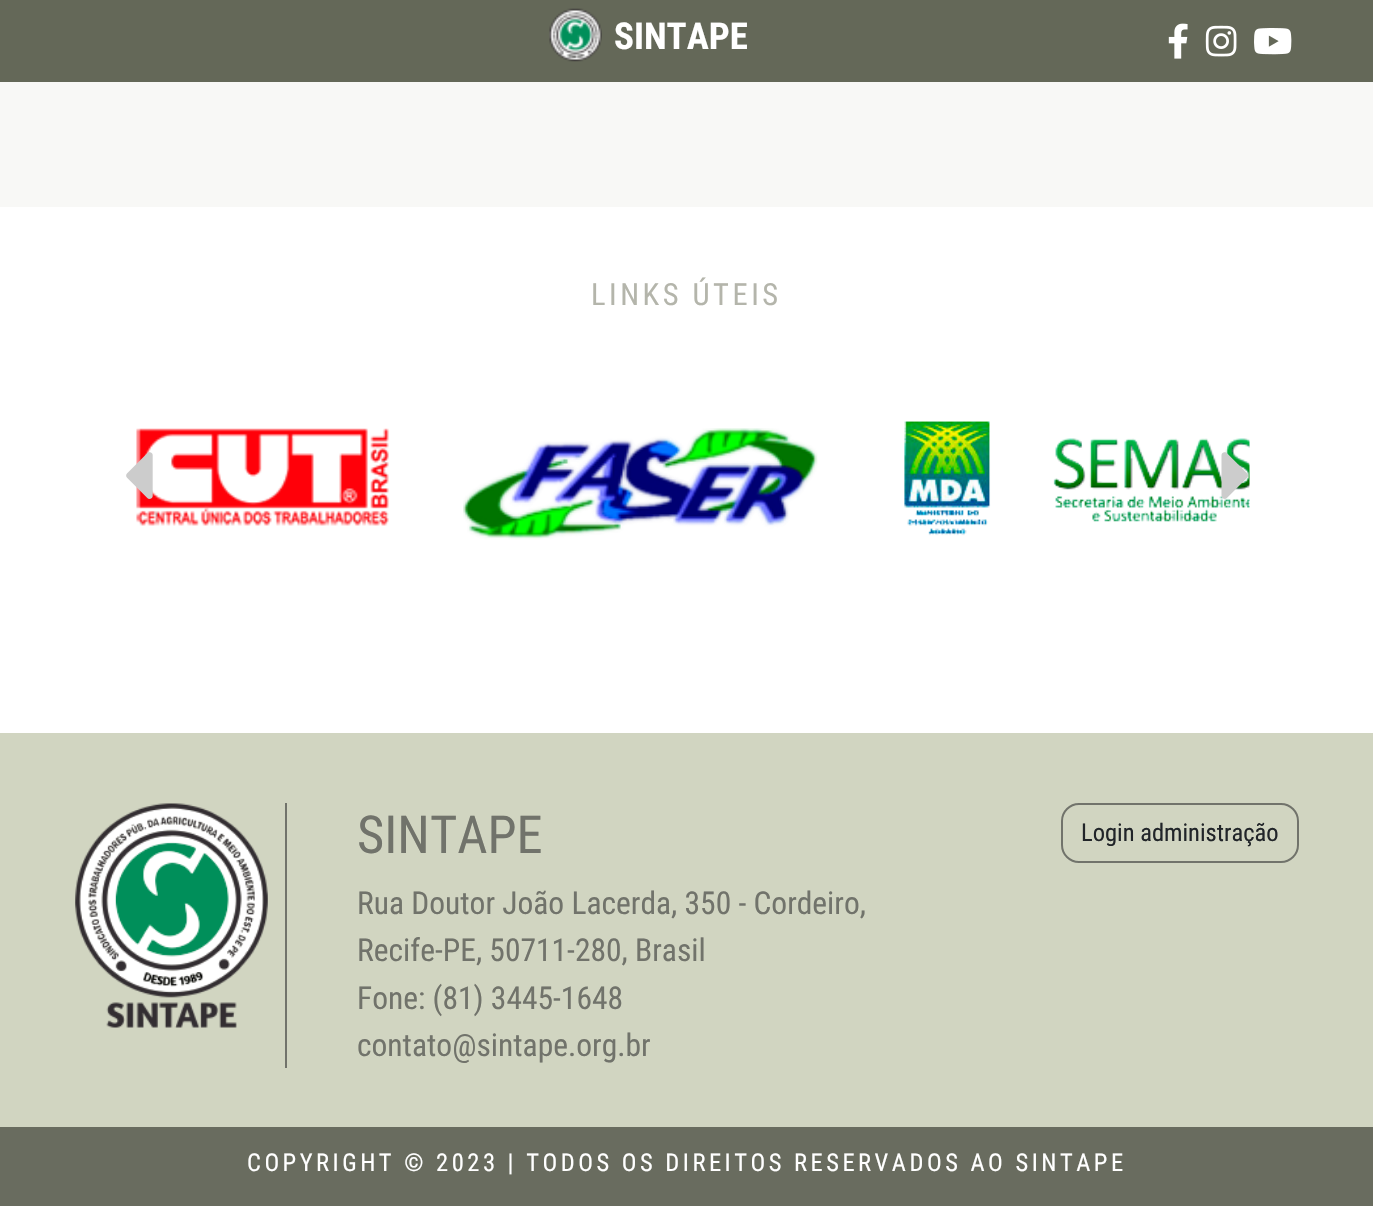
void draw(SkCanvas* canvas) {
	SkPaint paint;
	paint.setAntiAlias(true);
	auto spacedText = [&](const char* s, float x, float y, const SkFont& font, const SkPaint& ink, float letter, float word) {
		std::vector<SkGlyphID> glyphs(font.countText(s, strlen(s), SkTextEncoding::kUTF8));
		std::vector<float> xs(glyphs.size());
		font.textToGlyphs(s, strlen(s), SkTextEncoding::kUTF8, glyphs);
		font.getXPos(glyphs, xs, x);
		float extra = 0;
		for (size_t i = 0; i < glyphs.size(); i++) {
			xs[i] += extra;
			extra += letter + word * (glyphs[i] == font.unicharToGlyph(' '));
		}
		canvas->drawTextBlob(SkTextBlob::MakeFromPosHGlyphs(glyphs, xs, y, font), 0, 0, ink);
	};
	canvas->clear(0xffffffff);
	paint.setColor(0xfff8f8f6);
	canvas->drawRect(SkRect::MakeXYWH(0, 0, 1373, 207), paint);
	paint.setColor(0xb82b311a);
	canvas->drawRect(SkRect::MakeXYWH(0, 0, 1373, 82), paint);
	canvas->drawImageRect(SkImages::DeferredFromEncodedData(SkData::MakeFromFileName("img1.png")), SkRect::MakeXYWH(549, 8, 53, 54), SkSamplingOptions());
	SkFont f1(fontMgr->matchFamilyStyle("Roboto Condensed", SkFontStyle::Bold()), 37);
	f1.setSubpixel(true);
	paint.setColor(0xffffffff);
	canvas->drawString("SINTAPE", 614, 49, f1, paint);
	canvas->drawImageRect(SkImages::DeferredFromEncodedData(SkData::MakeFromFileName("img2.png")), SkRect::MakeXYWH(1168, 23, 20, 36), SkSamplingOptions());
	canvas->drawImageRect(SkImages::DeferredFromEncodedData(SkData::MakeFromFileName("img3.png")), SkRect::MakeXYWH(1205, 25, 32, 32), SkSamplingOptions());
	canvas->drawImageRect(SkImages::DeferredFromEncodedData(SkData::MakeFromFileName("img4.png")), SkRect::MakeXYWH(1254, 28, 38, 27), SkSamplingOptions());
	SkFont f2(fontMgr->matchFamilyStyle("Roboto Condensed", SkFontStyle::Normal()), 30.5);
	f2.setSubpixel(true);
	paint.setColor(0xffb4b5ab);
	spacedText("LINKS ÚTEIS", 591, 305, f2, paint, 3.5, 0);
	canvas->drawImageRect(SkImages::DeferredFromEncodedData(SkData::MakeFromFileName("img5.png")), SkRect::MakeXYWH(136, 428, 253, 98), SkSamplingOptions());
	canvas->drawImageRect(SkImages::DeferredFromEncodedData(SkData::MakeFromFileName("img6.png")), SkRect::MakeXYWH(463, 428, 355, 112), SkSamplingOptions());
	canvas->drawImageRect(SkImages::DeferredFromEncodedData(SkData::MakeFromFileName("img7.png")), SkRect::MakeXYWH(904, 421, 87, 115), SkSamplingOptions());
	canvas->drawImageRect(SkImages::DeferredFromEncodedData(SkData::MakeFromFileName("img8.png")), SkRect::MakeXYWH(1053, 438, 197, 84), SkSamplingOptions());
	canvas->drawImageRect(SkImages::DeferredFromEncodedData(SkData::MakeFromFileName("img9.png")), SkRect::MakeXYWH(126, 452, 27, 47), SkSamplingOptions());
	canvas->drawImageRect(SkImages::DeferredFromEncodedData(SkData::MakeFromFileName("img10.png")), SkRect::MakeXYWH(1221, 452, 27, 47), SkSamplingOptions());
	paint.setColor(0xffd1d5c1);
	canvas->drawRect(SkRect::MakeXYWH(0, 733, 1373, 394), paint);
	canvas->drawImageRect(SkImages::DeferredFromEncodedData(SkData::MakeFromFileName("img11.png")), SkRect::MakeXYWH(75, 803, 193, 225), SkSamplingOptions());
	paint.setColor(0xff71736b);
	canvas->drawRect(SkRect::MakeXYWH(285, 803, 2, 265), paint);
	SkFont f3(fontMgr->matchFamilyStyle("Roboto Condensed", SkFontStyle::Normal()), 52.5);
	f3.setSubpixel(true);
	canvas->drawString("SINTAPE", 357, 853, f3, paint);
	SkFont f4(fontMgr->matchFamilyStyle("Roboto Condensed", SkFontStyle::Normal()), 31.5);
	f4.setSubpixel(true);
	canvas->drawString("Rua Doutor João Lacerda, 350 - Cordeiro,", 357, 914, f4, paint);
	canvas->drawString("Recife-PE, 50711-280, Brasil", 357, 961, f4, paint);
	canvas->drawString("Fone: (81) 3445-1648", 357, 1009, f4, paint);
	canvas->drawString("contato@sintape.org.br", 357, 1056, f4, paint);
	paint.setStroke(true);
	paint.setStrokeWidth(2);
	canvas->drawRoundRect(SkRect::MakeXYWH(1062, 804, 236, 58), 17, 17, paint);
	SkFont f5(fontMgr->matchFamilyStyle("Roboto Condensed", SkFontStyle::Normal()), 24.5);
	f5.setSubpixel(true);
	paint.setStroke(false);
	paint.setColor(0xff212529);
	canvas->drawString("Login administração", 1081, 841, f5, paint);
	paint.setColor(0xff696c5f);
	canvas->drawRect(SkRect::MakeXYWH(0, 1127, 1373, 79), paint);
	paint.setColor(0xffffffff);
	spacedText("COPYRIGHT © 2023 | TODOS OS DIREITOS RESERVADOS AO SINTAPE", 247, 1171, f5, paint, 3.5, 0);
}
